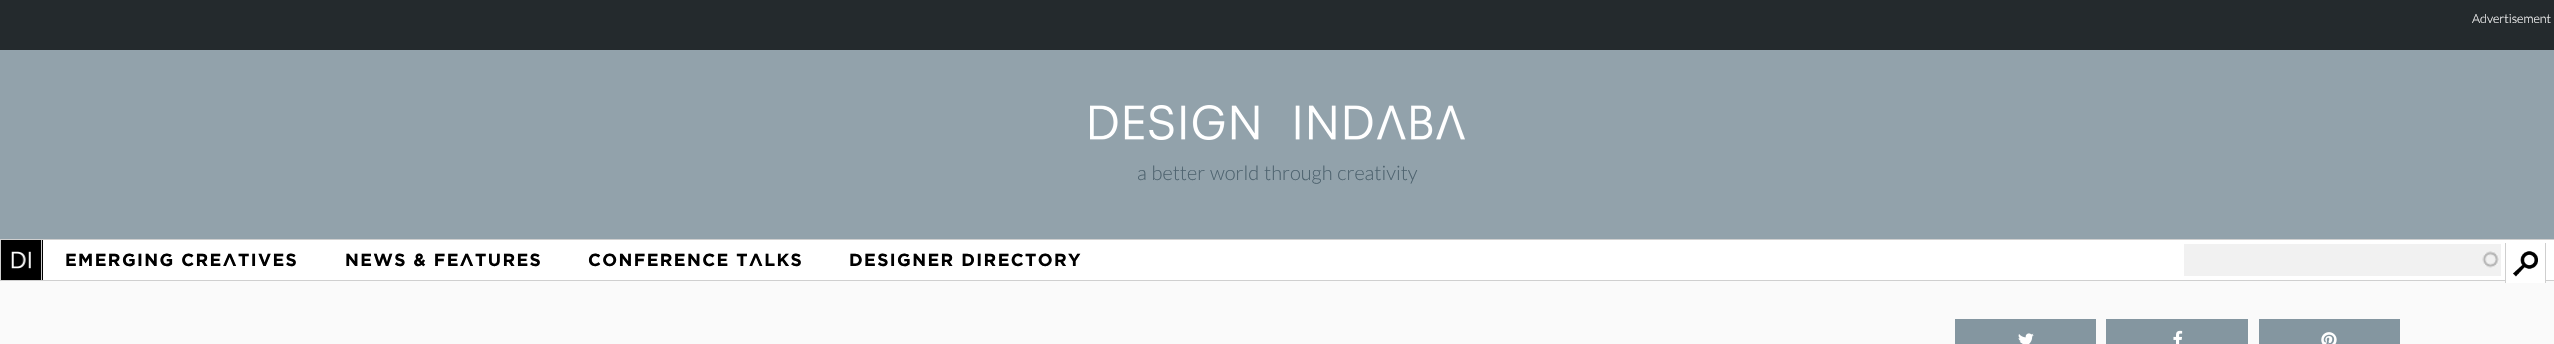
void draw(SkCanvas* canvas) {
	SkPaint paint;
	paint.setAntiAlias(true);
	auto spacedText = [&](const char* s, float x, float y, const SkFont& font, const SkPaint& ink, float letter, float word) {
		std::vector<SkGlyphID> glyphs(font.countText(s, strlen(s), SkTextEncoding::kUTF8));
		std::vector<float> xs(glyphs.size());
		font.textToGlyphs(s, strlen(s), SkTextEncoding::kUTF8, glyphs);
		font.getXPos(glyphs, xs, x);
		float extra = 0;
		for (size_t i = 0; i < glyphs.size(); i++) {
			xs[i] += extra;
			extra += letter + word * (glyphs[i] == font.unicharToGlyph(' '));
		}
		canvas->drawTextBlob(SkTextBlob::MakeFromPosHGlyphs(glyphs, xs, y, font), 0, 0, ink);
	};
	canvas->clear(0xfffafafa);
	paint.setColor(0xff242a2d);
	canvas->drawRect(SkRect::MakeXYWH(0, 0, 2554, 50), paint);
	SkFont f1(fontMgr->matchFamilyStyle("Lato", SkFontStyle(300, SkFontStyle::kNormal_Width, SkFontStyle::kUpright_Slant)), 12.5);
	f1.setSubpixel(true);
	paint.setColor(0xffffffff);
	canvas->drawString("Advertisement", 2472, 23, f1, paint);
	paint.setColor(0xff92a2ab);
	canvas->drawRect(SkRect::MakeXYWH(0, 50, 2554, 189), paint);
	canvas->drawImageRect(SkImages::DeferredFromEncodedData(SkData::MakeFromFileName("img1.png")), SkRect::MakeXYWH(1090, 105, 375, 35), SkSamplingOptions());
	SkFont f2(fontMgr->matchFamilyStyle("Lato", SkFontStyle(300, SkFontStyle::kNormal_Width, SkFontStyle::kUpright_Slant)), 20);
	f2.setSubpixel(true);
	paint.setColor(0xff4e636f);
	spacedText("a better world through creativity", 1137, 180, f2, paint, 0, 1);
	paint.setColor(0xffffffff);
	canvas->drawRect(SkRect::MakeXYWH(43, 240, 2511, 40), paint);
	paint.setColor(0xffcfcfcf);
	canvas->drawRect(SkRect::MakeXYWH(0, 239, 2554, 1), paint);
	canvas->drawRect(SkRect::MakeXYWH(0, 280, 2554, 1), paint);
	paint.setColor(0xff000000);
	canvas->drawRect(SkRect::MakeXYWH(1, 240, 42, 40), paint);
	canvas->drawImageRect(SkImages::DeferredFromEncodedData(SkData::MakeFromFileName("img2.png")), SkRect::MakeXYWH(11, 251, 20, 18), SkSamplingOptions());
	paint.setColor(0xffcfcfcf);
	canvas->drawRect(SkRect::MakeXYWH(41, 240, 1, 40), paint);
	canvas->drawRect(SkRect::MakeXYWH(0, 240, 1, 40), paint);
	SkFont f3(fontMgr->matchFamilyStyle("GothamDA", SkFontStyle::Bold()), 17.5);
	f3.setSubpixel(true);
	paint.setColor(0xff000000);
	spacedText("EMERGING CREATIVES", 65, 266, f3, paint, 1.4, 0);
	spacedText("NEWS & FEATURES", 345, 266, f3, paint, 1.4, 0);
	spacedText("CONFERENCE TALKS", 588, 266, f3, paint, 1.4, 0);
	spacedText("DESIGNER DIRECTORY", 849, 266, f3, paint, 1.4, 0);
	paint.setColor(0xfff1f1f1);
	canvas->drawRect(SkRect::MakeXYWH(2184, 244, 317, 32), paint);
	canvas->drawImageRect(SkImages::DeferredFromEncodedData(SkData::MakeFromFileName("img3.png")), SkRect::MakeXYWH(2482, 251, 17, 17), SkSamplingOptions());
	paint.setColor(0xffffffff);
	canvas->drawRect(SkRect::MakeXYWH(2506, 280, 39, 3), paint);
	canvas->drawImageRect(SkImages::DeferredFromEncodedData(SkData::MakeFromFileName("img4.png")), SkRect::MakeXYWH(2513, 251, 25, 26), SkSamplingOptions());
	paint.setColor(0xffcfcfcf);
	canvas->drawRect(SkRect::MakeXYWH(2545, 243, 1, 40), paint);
	canvas->drawRect(SkRect::MakeXYWH(2505, 243, 1, 40), paint);
	paint.setColor(0xff8496a0);
	canvas->drawRect(SkRect::MakeXYWH(1955, 319, 141, 25), paint);
	canvas->drawImageRect(SkImages::DeferredFromEncodedData(SkData::MakeFromFileName("img5.png")), SkRect::MakeXYWH(2018, 333, 16, 11), SkSamplingOptions());
	canvas->drawRect(SkRect::MakeXYWH(2106, 319, 142, 25), paint);
	canvas->drawImageRect(SkImages::DeferredFromEncodedData(SkData::MakeFromFileName("img6.png")), SkRect::MakeXYWH(2173, 330, 10, 14), SkSamplingOptions());
	canvas->drawRect(SkRect::MakeXYWH(2259, 319, 141, 25), paint);
	canvas->drawImageRect(SkImages::DeferredFromEncodedData(SkData::MakeFromFileName("img7.png")), SkRect::MakeXYWH(2321, 332, 16, 12), SkSamplingOptions());
}
